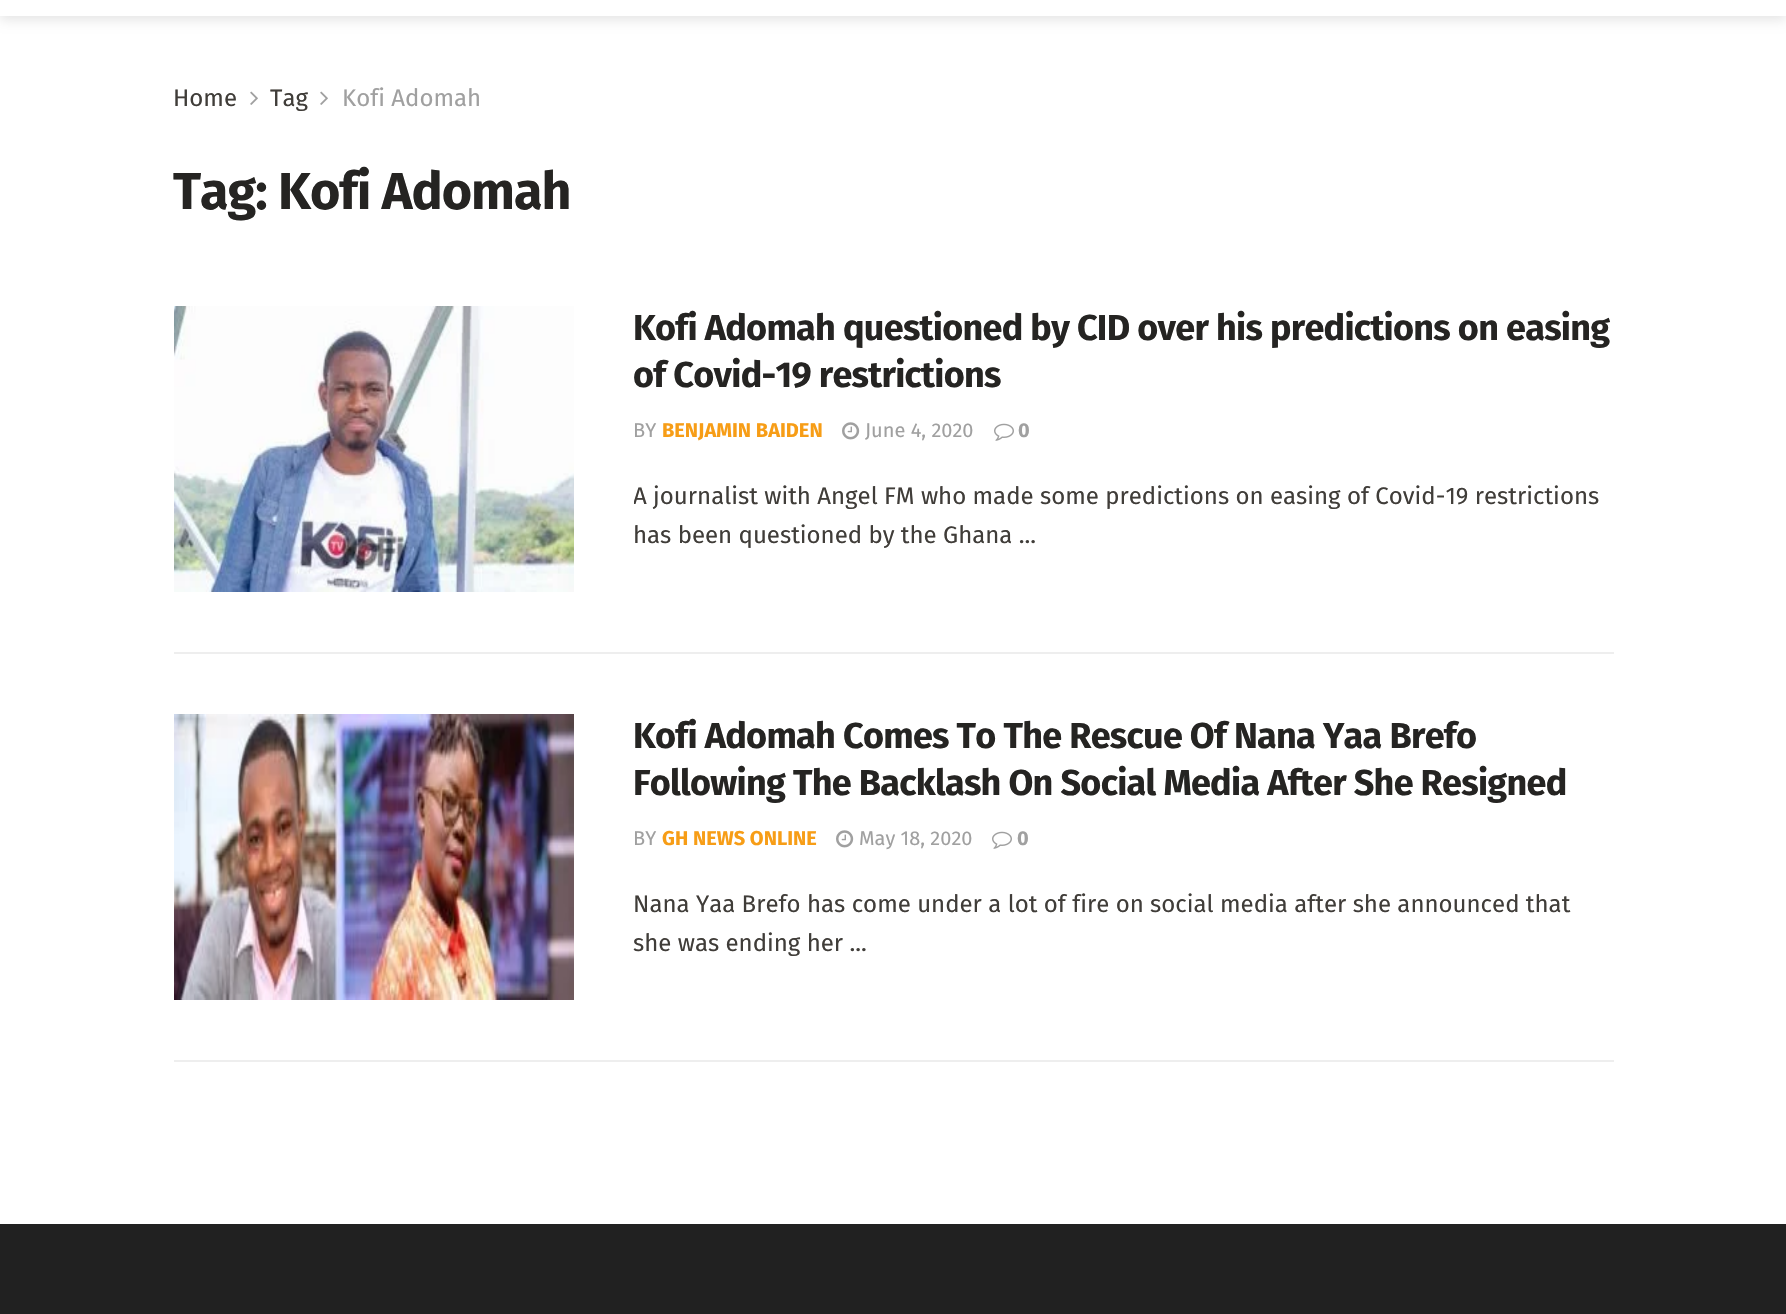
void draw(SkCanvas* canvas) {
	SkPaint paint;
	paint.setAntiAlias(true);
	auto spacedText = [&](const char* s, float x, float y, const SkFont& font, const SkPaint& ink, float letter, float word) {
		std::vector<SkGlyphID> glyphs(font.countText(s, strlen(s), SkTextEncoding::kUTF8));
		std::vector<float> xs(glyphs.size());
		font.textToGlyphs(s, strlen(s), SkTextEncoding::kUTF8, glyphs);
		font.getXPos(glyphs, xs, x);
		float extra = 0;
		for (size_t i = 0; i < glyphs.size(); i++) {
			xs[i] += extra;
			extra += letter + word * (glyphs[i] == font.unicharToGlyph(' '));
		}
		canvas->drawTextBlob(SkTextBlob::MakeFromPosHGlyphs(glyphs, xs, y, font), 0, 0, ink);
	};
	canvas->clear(0xff212121);
	paint.setColor(0xffffffff);
	canvas->drawRect(SkRect::MakeXYWH(0, 16, 1786, 1208), paint);
	paint.setColor(0x1a000000);
	paint.setMaskFilter(SkMaskFilter::MakeBlur(kNormal_SkBlurStyle, 6));
	canvas->drawRect(SkRect::MakeXYWH(0, -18, 1786, 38), paint);
	paint.setMaskFilter(nullptr);
	paint.setColor(0xffffffff);
	canvas->drawRect(SkRect::MakeXYWH(0, 0, 1786, 16), paint);
	SkFont f1(fontMgr->matchFamilyStyle("Fira Sans", SkFontStyle::Normal()), 24);
	f1.setSubpixel(true);
	paint.setColor(0xff403d39);
	canvas->drawString("Home", 173, 106, f1, paint);
	canvas->drawImageRect(SkImages::DeferredFromEncodedData(SkData::MakeFromFileName("img1.png")), SkRect::MakeXYWH(250, 91, 8, 14), SkSamplingOptions());
	canvas->drawString("Tag", 270, 106, f1, paint);
	canvas->drawImageRect(SkImages::DeferredFromEncodedData(SkData::MakeFromFileName("img1.png")), SkRect::MakeXYWH(320, 91, 8, 14), SkSamplingOptions());
	paint.setColor(0xffa0a0a0);
	canvas->drawString("Kofi Adomah", 342, 106, f1, paint);
	SkFont f2(fontMgr->matchFamilyStyle("Fira Sans", SkFontStyle::Bold()), 52);
	f2.setSubpixel(true);
	paint.setColor(0xff252422);
	spacedText("Tag: Kofi Adomah", 173, 209, f2, paint, -1, 0);
	paint.setColor(0xffeeeeee);
	canvas->drawRect(SkRect::MakeXYWH(174, 652, 1440, 2), paint);
	canvas->drawImageRect(SkImages::DeferredFromEncodedData(SkData::MakeFromFileName("img2.png")), SkRect::MakeXYWH(174, 306, 400, 286), SkSamplingOptions());
	SkFont f3(fontMgr->matchFamilyStyle("Fira Sans", SkFontStyle::Bold()), 36);
	f3.setSubpixel(true);
	paint.setColor(0xff252422);
	spacedText("Kofi Adomah questioned by CID over his predictions on easing", 633, 340, f3, paint, -0.72, 0);
	spacedText("of Covid-19 restrictions", 633, 387, f3, paint, -0.72, 0);
	SkFont f4(fontMgr->matchFamilyStyle("Fira Sans", SkFontStyle::Normal()), 20);
	f4.setSubpixel(true);
	paint.setColor(0xffa0a0a0);
	canvas->drawString("BY", 633, 437, f4, paint);
	SkFont f5(fontMgr->matchFamilyStyle("Fira Sans", SkFontStyle::Bold()), 20);
	f5.setSubpixel(true);
	paint.setColor(0xfff79d16);
	canvas->drawString("BENJAMIN BAIDEN", 662, 437, f5, paint);
	canvas->drawImageRect(SkImages::DeferredFromEncodedData(SkData::MakeFromFileName("img3.png")), SkRect::MakeXYWH(842, 422, 18, 18), SkSamplingOptions());
	paint.setColor(0xffa0a0a0);
	canvas->drawString("June 4, 2020", 865, 437, f4, paint);
	canvas->drawImageRect(SkImages::DeferredFromEncodedData(SkData::MakeFromFileName("img4.png")), SkRect::MakeXYWH(994, 423, 20, 18), SkSamplingOptions());
	canvas->drawString("0", 1018, 437, f5, paint);
	canvas->save();
	canvas->clipRect(SkRect::MakeXYWH(634, 306, 980, 250));
	paint.setColor(0xff403d39);
	canvas->drawString("A journalist with Angel FM who made some predictions on easing of Covid-19 restrictions", 633, 504, f1, paint);
	canvas->restore();
	canvas->drawString("has been questioned by the Ghana ...", 633, 543, f1, paint);
	paint.setColor(0xffeeeeee);
	canvas->drawRect(SkRect::MakeXYWH(174, 1060, 1440, 2), paint);
	canvas->drawImageRect(SkImages::DeferredFromEncodedData(SkData::MakeFromFileName("img5.png")), SkRect::MakeXYWH(174, 714, 400, 286), SkSamplingOptions());
	paint.setColor(0xff252422);
	spacedText("Kofi Adomah Comes To The Rescue Of Nana Yaa Brefo", 633, 748, f3, paint, -0.72, 0);
	spacedText("Following The Backlash On Social Media After She Resigned", 633, 795, f3, paint, -0.72, 0);
	paint.setColor(0xffa0a0a0);
	canvas->drawString("BY", 633, 845, f4, paint);
	paint.setColor(0xfff79d16);
	canvas->drawString("GH NEWS ONLINE", 662, 845, f5, paint);
	canvas->drawImageRect(SkImages::DeferredFromEncodedData(SkData::MakeFromFileName("img3.png")), SkRect::MakeXYWH(836, 830, 18, 18), SkSamplingOptions());
	paint.setColor(0xffa0a0a0);
	canvas->drawString("May 18, 2020", 859, 845, f4, paint);
	canvas->drawImageRect(SkImages::DeferredFromEncodedData(SkData::MakeFromFileName("img4.png")), SkRect::MakeXYWH(992, 831, 20, 18), SkSamplingOptions());
	canvas->drawString("0", 1017, 845, f5, paint);
	paint.setColor(0xff403d39);
	canvas->drawString("Nana Yaa Brefo has come under a lot of fire on social media after she announced that", 633, 912, f1, paint);
	canvas->drawString("she was ending her ...", 633, 951, f1, paint);
}
